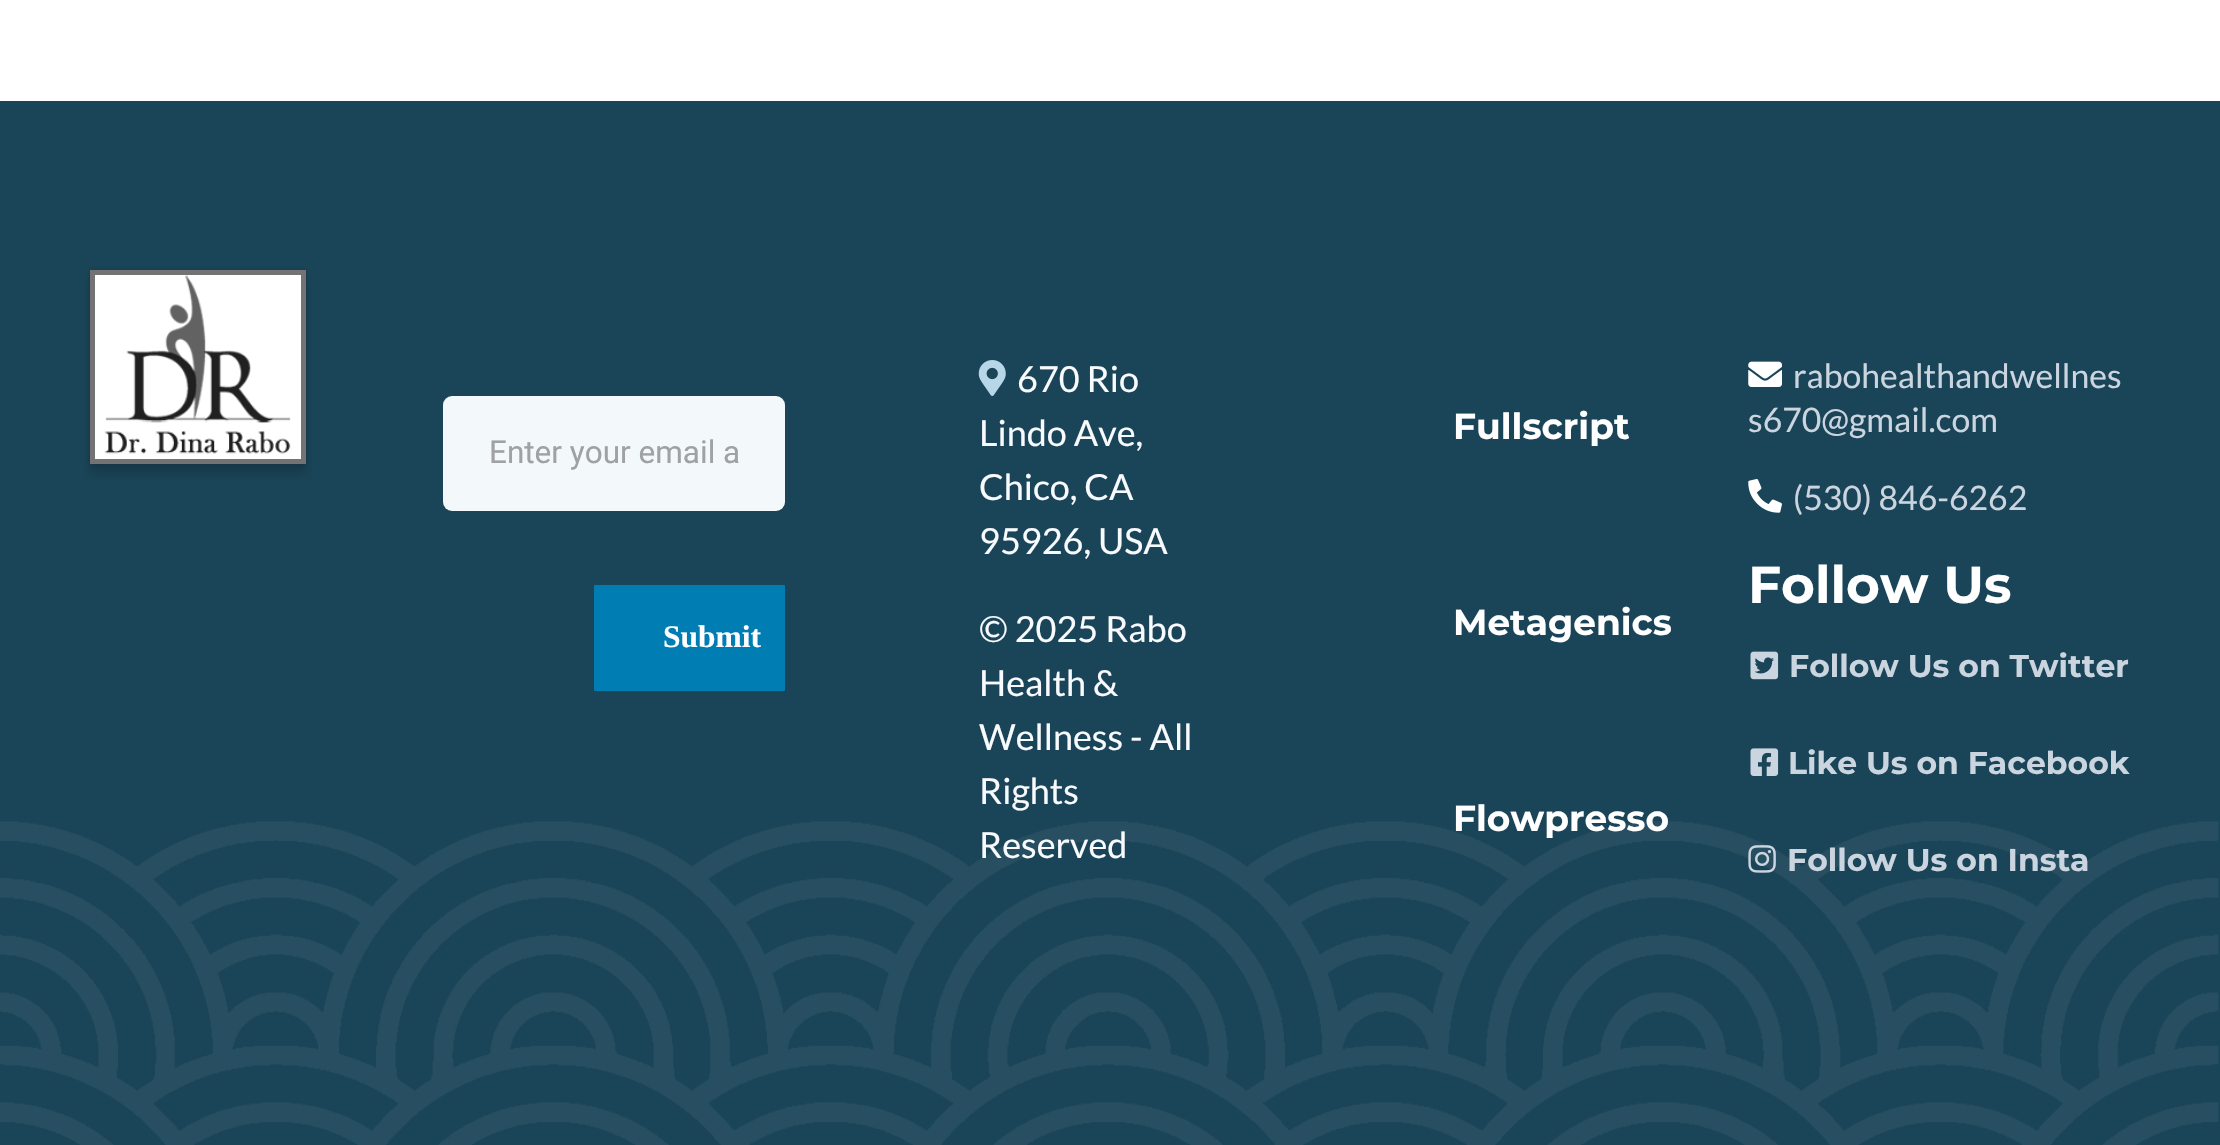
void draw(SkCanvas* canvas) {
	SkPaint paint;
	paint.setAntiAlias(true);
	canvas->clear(0xffffffff);
	paint.setColor(0xff1a4457);
	canvas->drawRect(SkRect::MakeXYWH(0, 101, 2220, 1044), paint);
	paint.setColor(0x26000000);
	paint.setMaskFilter(SkMaskFilter::MakeBlur(kNormal_SkBlurStyle, 2));
	canvas->drawRect(SkRect::MakeXYWH(90, 270, 216, 194), paint);
	paint.setMaskFilter(nullptr);
	paint.setMaskFilter(SkMaskFilter::MakeBlur(kNormal_SkBlurStyle, 3.5));
	canvas->drawRect(SkRect::MakeXYWH(90, 279, 216, 194), paint);
	paint.setMaskFilter(nullptr);
	paint.setColor(0xffffffff);
	canvas->drawRect(SkRect::MakeXYWH(92.5, 272.5, 211, 189), paint);
	paint.setStroke(true);
	paint.setStrokeWidth(5);
	paint.setColor(0xff737373);
	canvas->drawRect(SkRect::MakeXYWH(92.5, 272.5, 211, 189), paint);
	canvas->drawImageRect(SkImages::DeferredFromEncodedData(SkData::MakeFromFileName("img1.png")), SkRect::MakeXYWH(104, 275, 187, 179), SkSamplingOptions());
	paint.setStroke(false);
	paint.setColor(0xfff3f8fb);
	canvas->drawRoundRect(SkRect::MakeXYWH(443, 396, 342, 115), 9, 9, paint);
	SkFont f1(fontMgr->matchFamilyStyle("Roboto", SkFontStyle::Normal()), 31.5);
	f1.setSubpixel(true);
	paint.setColor(0xff9fa1a3);
	canvas->drawString("Enter your email a", 489, 463, f1, paint);
	paint.setColor(0xff007db2);
	canvas->drawRoundRect(SkRect::MakeXYWH(594, 585, 191, 106), 1, 1, paint);
	SkFont f2(fontMgr->matchFamilyStyle("Liberation Serif", SkFontStyle::Bold()), 31.5);
	f2.setSubpixel(true);
	paint.setColor(0xffffffff);
	canvas->drawString("Submit", 663, 647, f2, paint);
	canvas->drawImageRect(SkImages::DeferredFromEncodedData(SkData::MakeFromFileName("img2.png")), SkRect::MakeXYWH(978, 360, 28, 36), SkSamplingOptions());
	SkFont f3(fontMgr->matchFamilyStyle("Lato", SkFontStyle::Normal()), 36);
	f3.setSubpixel(true);
	paint.setColor(0xfff8fafd);
	canvas->drawString("670 Rio", 1017, 392, f3, paint);
	canvas->drawString("Lindo Ave,", 979, 446, f3, paint);
	canvas->drawString("Chico, CA", 979, 500, f3, paint);
	canvas->drawString("95926, USA", 979, 554, f3, paint);
	canvas->drawString("© 2025 Rabo", 979, 642, f3, paint);
	canvas->drawString("Health &", 979, 696, f3, paint);
	canvas->drawString("Wellness - All", 979, 750, f3, paint);
	canvas->drawString("Rights", 979, 804, f3, paint);
	canvas->drawImageRect(SkImages::DeferredFromEncodedData(SkData::MakeFromFileName("img8.png")), SkRect::MakeXYWH(0, 821, 2219, 324), SkSamplingOptions());
	canvas->drawString("Reserved", 979, 858, f3, paint);
	SkFont f4(fontMgr->matchFamilyStyle("Montserrat", SkFontStyle::Bold()), 36);
	f4.setSubpixel(true);
	paint.setColor(0xffffffff);
	canvas->drawString("Fullscript", 1453, 439, f4, paint);
	canvas->drawString("Metagenics", 1453, 635, f4, paint);
	canvas->drawString("Flowpresso", 1453, 831, f4, paint);
	canvas->drawImageRect(SkImages::DeferredFromEncodedData(SkData::MakeFromFileName("img3.png")), SkRect::MakeXYWH(1748, 361, 34, 26), SkSamplingOptions());
	SkFont f5(fontMgr->matchFamilyStyle("Lato", SkFontStyle::Normal()), 33.75);
	f5.setSubpixel(true);
	paint.setColor(0xffcbd5e0);
	canvas->drawString("rabohealthandwellnes", 1793, 388, f5, paint);
	canvas->drawString("s670@gmail.com", 1748, 432, f5, paint);
	canvas->drawImageRect(SkImages::DeferredFromEncodedData(SkData::MakeFromFileName("img4.png")), SkRect::MakeXYWH(1748, 479, 34, 34), SkSamplingOptions());
	canvas->drawString("(530) 846-6262", 1793, 510, f5, paint);
	SkFont f6(fontMgr->matchFamilyStyle("Montserrat", SkFontStyle::Bold()), 51.75);
	f6.setSubpixel(true);
	paint.setColor(0xffffffff);
	canvas->drawString("Follow Us", 1748, 603, f6, paint);
	canvas->drawImageRect(SkImages::DeferredFromEncodedData(SkData::MakeFromFileName("img5.png")), SkRect::MakeXYWH(1750, 651, 29, 29), SkSamplingOptions());
	SkFont f7(fontMgr->matchFamilyStyle("Montserrat", SkFontStyle::Bold()), 31.5);
	f7.setSubpixel(true);
	paint.setColor(0xffcbd5e0);
	canvas->drawString("Follow Us on Twitter", 1789, 677, f7, paint);
	canvas->drawImageRect(SkImages::DeferredFromEncodedData(SkData::MakeFromFileName("img6.png")), SkRect::MakeXYWH(1750, 748, 29, 28), SkSamplingOptions());
	canvas->drawString("Like Us on Facebook", 1788, 774, f7, paint);
	canvas->drawImageRect(SkImages::DeferredFromEncodedData(SkData::MakeFromFileName("img7.png")), SkRect::MakeXYWH(1748, 845, 28, 28), SkSamplingOptions());
	canvas->drawString("Follow Us on Insta", 1787, 871, f7, paint);
}
